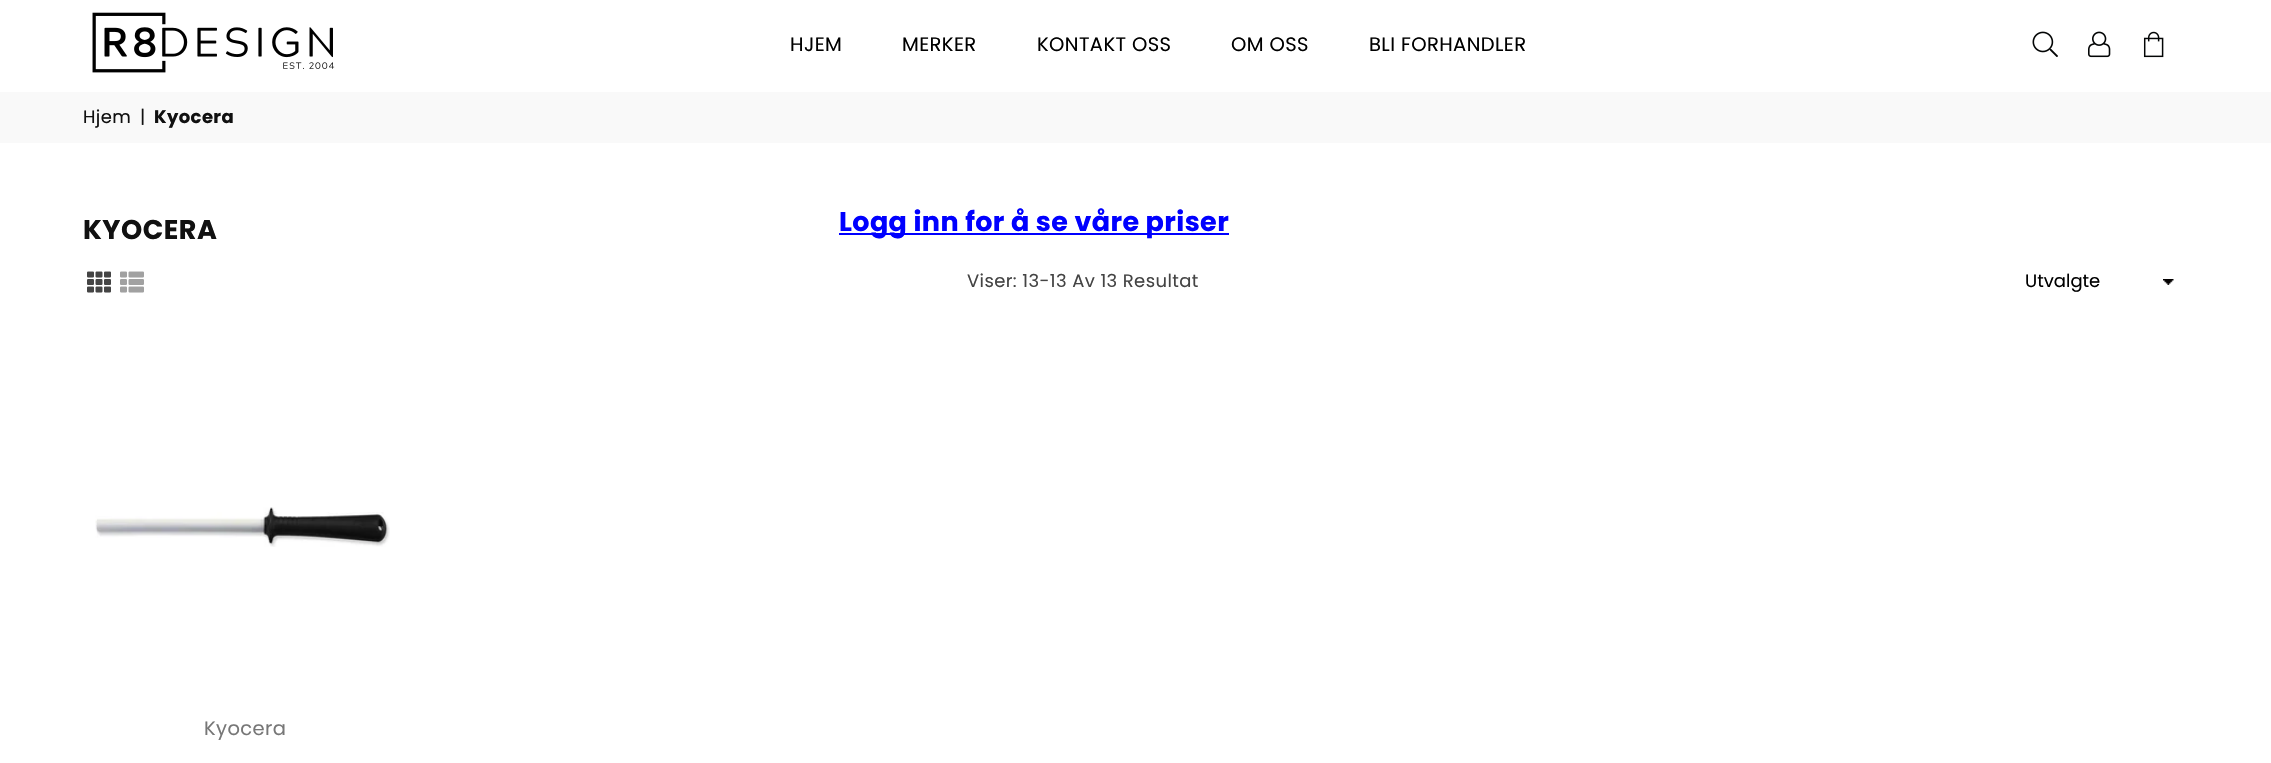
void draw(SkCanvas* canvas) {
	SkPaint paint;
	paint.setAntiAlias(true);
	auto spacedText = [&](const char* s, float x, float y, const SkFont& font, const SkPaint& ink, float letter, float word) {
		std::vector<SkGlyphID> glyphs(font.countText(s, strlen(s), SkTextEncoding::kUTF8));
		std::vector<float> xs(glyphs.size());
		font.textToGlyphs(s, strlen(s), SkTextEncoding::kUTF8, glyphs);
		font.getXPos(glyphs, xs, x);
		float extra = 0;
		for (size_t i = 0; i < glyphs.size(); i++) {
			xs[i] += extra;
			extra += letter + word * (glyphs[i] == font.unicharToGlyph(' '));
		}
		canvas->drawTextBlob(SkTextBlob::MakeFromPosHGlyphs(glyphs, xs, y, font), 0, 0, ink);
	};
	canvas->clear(0xffffffff);
	canvas->drawImageRect(SkImages::DeferredFromEncodedData(SkData::MakeFromFileName("img1.png")), SkRect::MakeXYWH(92, 12, 243, 61), SkSamplingOptions());
	SkFont f1(fontMgr->matchFamilyStyle("Poppins", SkFontStyle::Normal()), 19.5);
	f1.setSubpixel(true);
	paint.setColor(0xff000000);
	spacedText("HJEM", 790, 51, f1, paint, 0.4, 0);
	spacedText("MERKER", 902, 51, f1, paint, 0.4, 0);
	spacedText("KONTAKT OSS", 1037, 51, f1, paint, 0.4, 0);
	spacedText("OM OSS", 1231, 51, f1, paint, 0.4, 0);
	spacedText("BLI FORHANDLER", 1369, 51, f1, paint, 0.4, 0);
	canvas->drawImageRect(SkImages::DeferredFromEncodedData(SkData::MakeFromFileName("img2.png")), SkRect::MakeXYWH(2032, 31, 26, 26), SkSamplingOptions());
	canvas->drawImageRect(SkImages::DeferredFromEncodedData(SkData::MakeFromFileName("img3.png")), SkRect::MakeXYWH(2088, 31, 23, 27), SkSamplingOptions());
	canvas->drawImageRect(SkImages::DeferredFromEncodedData(SkData::MakeFromFileName("img4.png")), SkRect::MakeXYWH(2143, 31, 21, 27), SkSamplingOptions());
	paint.setColor(0xfff9f9f9);
	canvas->drawRect(SkRect::MakeXYWH(0, 92, 2271, 51), paint);
	SkFont f2(fontMgr->matchFamilyStyle("Poppins", SkFontStyle::Normal()), 18);
	f2.setSubpixel(true);
	paint.setColor(0xff111111);
	spacedText("Hjem", 83, 123, f2, paint, 0.4, 0);
	spacedText("|", 140, 123, f2, paint, 0.4, 0);
	SkFont f3(fontMgr->matchFamilyStyle("Poppins", SkFontStyle::Bold()), 18);
	f3.setSubpixel(true);
	spacedText("Kyocera", 154, 123, f3, paint, 0.4, 0);
	SkFont f4(fontMgr->matchFamilyStyle("Poppins", SkFontStyle::Bold()), 27);
	f4.setSubpixel(true);
	spacedText("KYOCERA", 83, 239, f4, paint, 0.5, 0);
	paint.setColor(0xff0000ff);
	canvas->drawRect(SkRect::MakeXYWH(839, 233, 390, 2), paint);
	spacedText("Logg inn for å se våre priser", 839, 231, f4, paint, 0.4, 0);
	canvas->drawImageRect(SkImages::DeferredFromEncodedData(SkData::MakeFromFileName("img5.png")), SkRect::MakeXYWH(87, 271, 24, 22), SkSamplingOptions());
	canvas->drawImageRect(SkImages::DeferredFromEncodedData(SkData::MakeFromFileName("img6.png")), SkRect::MakeXYWH(120, 271, 24, 22), SkSamplingOptions());
	paint.setColor(0xff444444);
	spacedText("Viser: 13-13 Av 13 Resultat", 967, 287, f2, paint, 0.4, 0);
	canvas->drawImageRect(SkImages::DeferredFromEncodedData(SkData::MakeFromFileName("img7.png")), SkRect::MakeXYWH(2163, 279, 11, 6), SkSamplingOptions());
	paint.setColor(0xff000000);
	canvas->drawString("Utvalgte", 2025, 287, f2, paint);
	canvas->drawImageRect(SkImages::DeferredFromEncodedData(SkData::MakeFromFileName("img8.png")), SkRect::MakeXYWH(95, 507, 295, 40), SkSamplingOptions());
	paint.setColor(0xff777777);
	spacedText("Kyocera", 204, 735, f1, paint, 0.4, 0);
}
